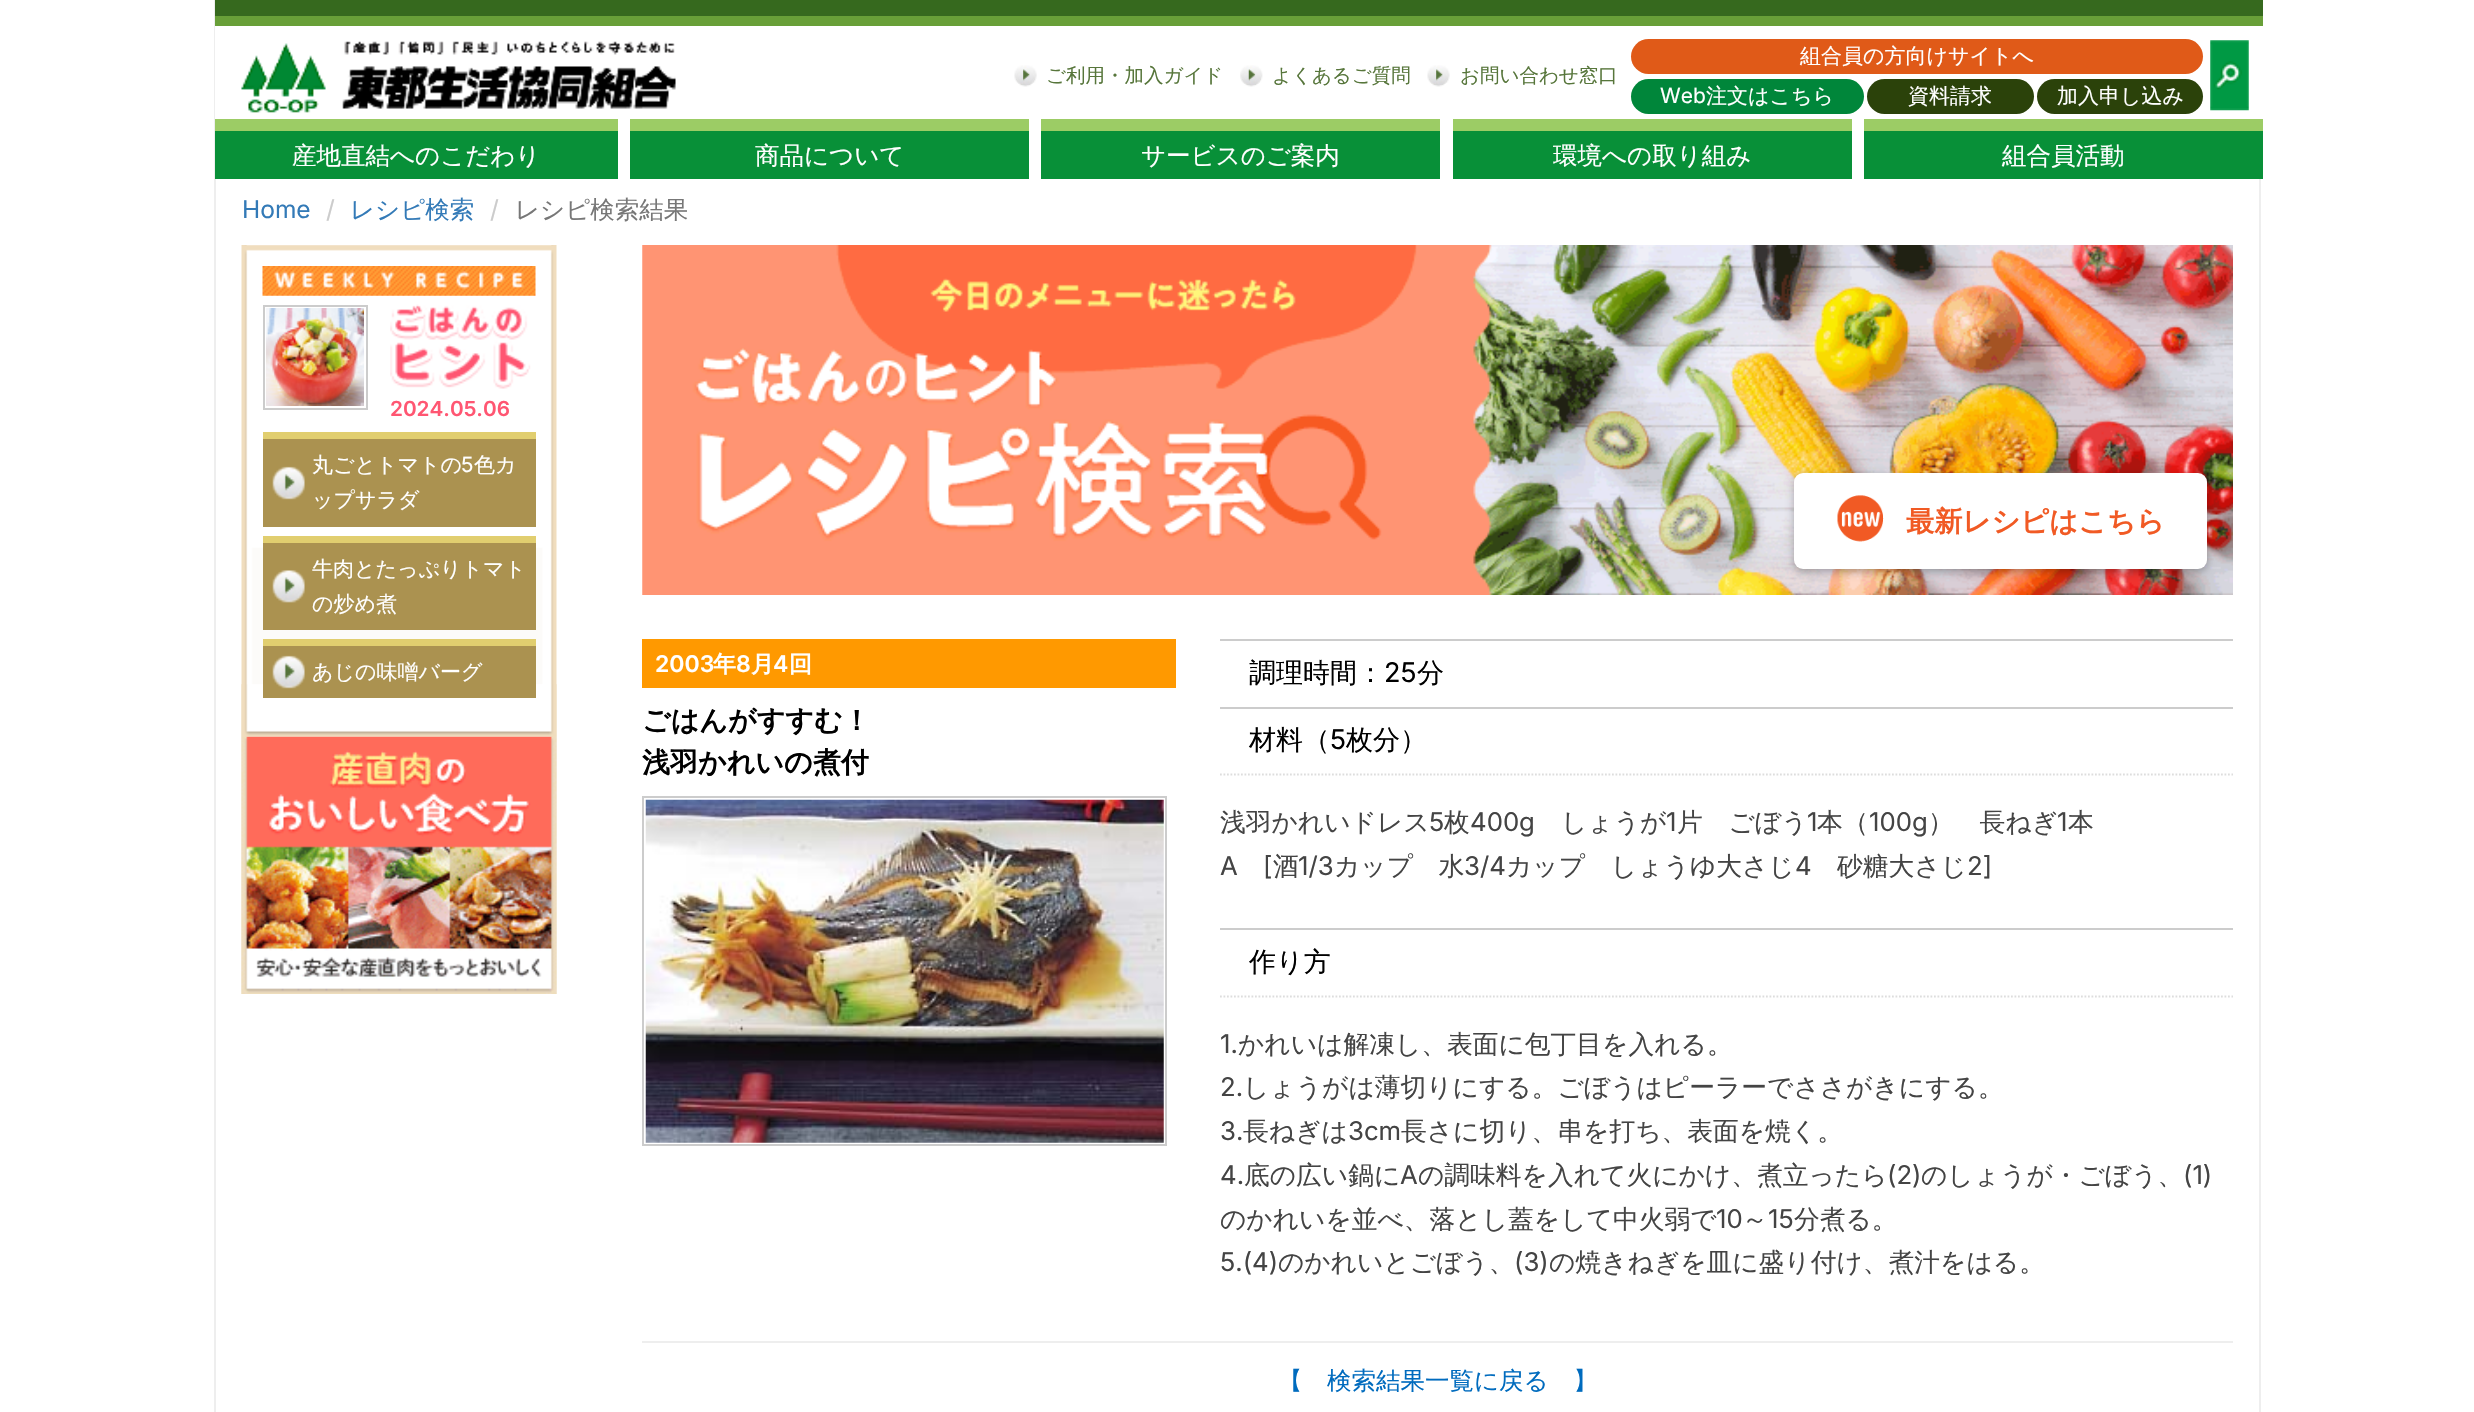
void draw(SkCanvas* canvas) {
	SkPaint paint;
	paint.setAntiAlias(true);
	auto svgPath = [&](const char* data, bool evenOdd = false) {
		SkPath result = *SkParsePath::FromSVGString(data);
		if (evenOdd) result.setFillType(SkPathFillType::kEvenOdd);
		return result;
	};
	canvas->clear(0xffffffff);
	paint.setColor(0xffeeeeee);
	canvas->drawRect(SkRect::MakeXYWH(2259, 179, 2, 1233), paint);
	canvas->drawRect(SkRect::MakeXYWH(214, 0, 2, 1412), paint);
	paint.setColor(0xffffffff);
	canvas->drawRect(SkRect::MakeXYWH(215, 26, 1, 93), paint);
	paint.setColor(0xff36691e);
	canvas->drawRect(SkRect::MakeXYWH(215, 0, 2048, 16), paint);
	paint.setColor(0xff689f38);
	canvas->drawRect(SkRect::MakeXYWH(215, 16, 2048, 10), paint);
	canvas->drawImageRect(SkImages::DeferredFromEncodedData(SkData::MakeFromFileName("img1.png")), SkRect::MakeXYWH(241, 41, 435, 72), SkSamplingOptions());
	paint.setColor(0xffe05a18);
	canvas->drawRoundRect(SkRect::MakeXYWH(1631, 39, 572, 35), 17.5, 17.5, paint);
	SkFont f1(fontMgr->matchFamilyStyle("WenQuanYi Zen Hei", SkFontStyle(500, SkFontStyle::kNormal_Width, SkFontStyle::kUpright_Slant)), 21);
	f1.setSubpixel(true);
	paint.setColor(0xffffffff);
	canvas->drawString("組合員の方向けサイトへ", 1800, 63, f1, paint);
	canvas->drawImageRect(SkImages::DeferredFromEncodedData(SkData::MakeFromFileName("img2.png")), SkRect::MakeXYWH(2210, 40, 39, 71), SkSamplingOptions());
	canvas->drawImageRect(SkImages::DeferredFromEncodedData(SkData::MakeFromFileName("img3.png")), SkRect::MakeXYWH(1014, 65, 23, 22), SkSamplingOptions());
	SkFont f2(fontMgr->matchFamilyStyle("WenQuanYi Zen Hei", SkFontStyle(500, SkFontStyle::kNormal_Width, SkFontStyle::kUpright_Slant)), 19.5);
	f2.setSubpixel(true);
	paint.setColor(0xff57763b);
	canvas->drawString("ご利用・加入ガイド", 1046, 82, f2, paint);
	canvas->drawImageRect(SkImages::DeferredFromEncodedData(SkData::MakeFromFileName("img4.png")), SkRect::MakeXYWH(1240, 65, 23, 22), SkSamplingOptions());
	canvas->drawString("よくあるご質問", 1272, 82, f2, paint);
	canvas->drawImageRect(SkImages::DeferredFromEncodedData(SkData::MakeFromFileName("img5.png")), SkRect::MakeXYWH(1427, 65, 23, 22), SkSamplingOptions());
	canvas->drawString("お問い合わせ窓口", 1460, 82, f2, paint);
	paint.setColor(0xff00863a);
	canvas->drawRoundRect(SkRect::MakeXYWH(1631, 79, 233, 35), 17.5, 17.5, paint);
	SkFont f3(fontMgr->matchFamilyStyle("Inter", SkFontStyle::Normal()), 21);
	f3.setSubpixel(true);
	paint.setColor(0xffffffff);
	canvas->drawString("Web", 1660, 103, f3, paint);
	canvas->drawString("注文はこちら", 1706, 103, f1, paint);
	paint.setColor(0xff2b420a);
	canvas->drawRoundRect(SkRect::MakeXYWH(1867, 79, 167, 35), 17.5, 17.5, paint);
	paint.setColor(0xffffffff);
	canvas->drawString("資料請求", 1908, 103, f1, paint);
	paint.setColor(0xff2b420a);
	canvas->drawRoundRect(SkRect::MakeXYWH(2037, 79, 166, 35), 17.5, 17.5, paint);
	paint.setColor(0xffffffff);
	canvas->drawString("加入申し込み", 2057, 103, f1, paint);
	paint.setColor(0xff089038);
	canvas->drawRect(SkRect::MakeXYWH(215, 131, 403, 48), paint);
	paint.setColor(0xff9ccc65);
	canvas->drawRect(SkRect::MakeXYWH(215, 119, 403, 12), paint);
	SkFont f4(fontMgr->matchFamilyStyle("WenQuanYi Zen Hei", SkFontStyle(500, SkFontStyle::kNormal_Width, SkFontStyle::kUpright_Slant)), 24.5);
	f4.setSubpixel(true);
	paint.setColor(0xffffffff);
	canvas->drawString("産地直結へのこだわり", 292, 164, f4, paint);
	paint.setColor(0xff089038);
	canvas->drawRect(SkRect::MakeXYWH(630, 131, 399, 48), paint);
	paint.setColor(0xff9ccc65);
	canvas->drawRect(SkRect::MakeXYWH(630, 119, 399, 12), paint);
	paint.setColor(0xffffffff);
	canvas->drawString("商品について", 755, 164, f4, paint);
	paint.setColor(0xff089038);
	canvas->drawRect(SkRect::MakeXYWH(1041, 131, 399, 48), paint);
	paint.setColor(0xff9ccc65);
	canvas->drawRect(SkRect::MakeXYWH(1041, 119, 399, 12), paint);
	paint.setColor(0xffffffff);
	canvas->drawString("サービスのご案内", 1141, 164, f4, paint);
	paint.setColor(0xff089038);
	canvas->drawRect(SkRect::MakeXYWH(1453, 131, 399, 48), paint);
	paint.setColor(0xff9ccc65);
	canvas->drawRect(SkRect::MakeXYWH(1453, 119, 399, 12), paint);
	paint.setColor(0xffffffff);
	canvas->drawString("環境への取り組み", 1553, 164, f4, paint);
	paint.setColor(0xff089038);
	canvas->drawRect(SkRect::MakeXYWH(1864, 131, 399, 48), paint);
	paint.setColor(0xff9ccc65);
	canvas->drawRect(SkRect::MakeXYWH(1864, 119, 399, 12), paint);
	paint.setColor(0xffffffff);
	canvas->drawString("組合員活動", 2002, 164, f4, paint);
	SkFont f5(fontMgr->matchFamilyStyle("Inter", SkFontStyle::Normal()), 24.5);
	f5.setSubpixel(true);
	paint.setColor(0xff337ab7);
	canvas->drawString("Home", 242, 218, f5, paint);
	paint.setColor(0xffcccccc);
	canvas->drawString("/", 326, 218, f5, paint);
	paint.setColor(0xff337ab7);
	canvas->drawString("レシピ検索", 350, 218, f4, paint);
	paint.setColor(0xffcccccc);
	canvas->drawString("/", 490, 218, f5, paint);
	paint.setColor(0xff777777);
	canvas->drawString("レシピ検索結果", 515, 218, f4, paint);
	canvas->drawImageRect(SkImages::DeferredFromEncodedData(SkData::MakeFromFileName("img6.png")), SkRect::MakeXYWH(241, 245, 316, 749), SkSamplingOptions());
	canvas->drawImageRect(SkImages::DeferredFromEncodedData(SkData::MakeFromFileName("img7.png")), SkRect::MakeXYWH(241, 684, 316, 53), SkSamplingOptions());
	canvas->drawImageRect(SkImages::DeferredFromEncodedData(SkData::MakeFromFileName("img8.png")), SkRect::MakeXYWH(262, 266, 274, 30), SkSamplingOptions());
	paint.setStroke(true);
	paint.setStrokeWidth(2);
	paint.setColor(0xffcccccc);
	canvas->drawRect(SkRect::MakeXYWH(264, 306, 103, 103), paint);
	canvas->drawImageRect(SkImages::DeferredFromEncodedData(SkData::MakeFromFileName("img9.png")), SkRect::MakeXYWH(266, 308, 98, 98), SkSamplingOptions());
	canvas->drawImageRect(SkImages::DeferredFromEncodedData(SkData::MakeFromFileName("img10.png")), SkRect::MakeXYWH(390, 304, 141, 85), SkSamplingOptions());
	SkFont f6(fontMgr->matchFamilyStyle("Inter", SkFontStyle(600, SkFontStyle::kNormal_Width, SkFontStyle::kUpright_Slant)), 20.75);
	f6.setSubpixel(true);
	paint.setStroke(false);
	paint.setColor(0xffff5672);
	canvas->drawString("2024.05.06", 390, 416, f6, paint);
	paint.setColor(0xffab9250);
	canvas->drawRect(SkRect::MakeXYWH(263, 439, 273, 88), paint);
	canvas->drawImageRect(SkImages::DeferredFromEncodedData(SkData::MakeFromFileName("img11.png")), SkRect::MakeXYWH(272, 466, 33, 34), SkSamplingOptions());
	paint.setColor(0xffe1ce6f);
	canvas->drawRect(SkRect::MakeXYWH(263, 432, 273, 7), paint);
	paint.setColor(0xffffffff);
	canvas->drawString("丸ごとトマトの", 312, 472, f1, paint);
	canvas->drawString("5", 461, 472, f3, paint);
	canvas->drawString("色カ", 474, 472, f1, paint);
	canvas->drawString("ップサラダ", 312, 507, f1, paint);
	paint.setColor(0xffab9250);
	canvas->drawRect(SkRect::MakeXYWH(263, 543, 273, 87), paint);
	canvas->drawImageRect(SkImages::DeferredFromEncodedData(SkData::MakeFromFileName("img12.png")), SkRect::MakeXYWH(272, 570, 33, 33), SkSamplingOptions());
	paint.setColor(0xffe1ce6f);
	canvas->drawRect(SkRect::MakeXYWH(263, 536, 273, 7), paint);
	paint.setColor(0xffffffff);
	canvas->drawString("牛肉とたっぷりトマト", 312, 576, f1, paint);
	canvas->drawString("の炒め煮", 312, 611, f1, paint);
	paint.setColor(0xffab9250);
	canvas->drawRect(SkRect::MakeXYWH(263, 646, 273, 52), paint);
	canvas->drawImageRect(SkImages::DeferredFromEncodedData(SkData::MakeFromFileName("img11.png")), SkRect::MakeXYWH(272, 655, 33, 34), SkSamplingOptions());
	paint.setColor(0xffe1ce6f);
	canvas->drawRect(SkRect::MakeXYWH(263, 639, 273, 7), paint);
	paint.setColor(0xffffffff);
	canvas->drawString("あじの味噌バーグ", 312, 679, f1, paint);
	canvas->drawImageRect(SkImages::DeferredFromEncodedData(SkData::MakeFromFileName("img13.png")), SkRect::MakeXYWH(241, 736, 316, 258), SkSamplingOptions());
	canvas->drawImageRect(SkImages::DeferredFromEncodedData(SkData::MakeFromFileName("img14.png")), SkRect::MakeXYWH(642, 245, 1591, 350), SkSamplingOptions());
	paint.setColor(0x4d000000);
	paint.setMaskFilter(SkMaskFilter::MakeBlur(kNormal_SkBlurStyle, 4.5));
	canvas->drawRoundRect(SkRect::MakeXYWH(1794, 476, 413, 96), 9, 9, paint);
	paint.setMaskFilter(nullptr);
	paint.setColor(0xffffffff);
	canvas->drawRoundRect(SkRect::MakeXYWH(1794, 473, 413, 96), 9, 9, paint);
	canvas->drawImageRect(SkImages::DeferredFromEncodedData(SkData::MakeFromFileName("img15.png")), SkRect::MakeXYWH(1837, 495, 47, 47), SkSamplingOptions());
	SkFont f7(fontMgr->matchFamilyStyle("WenQuanYi Zen Hei", SkFontStyle::Bold()), 28.25);
	f7.setSubpixel(true);
	paint.setColor(0xfff15a24);
	canvas->drawString("最新レシピはこちら", 1906, 531, f7, paint);
	paint.setColor(0xffff9900);
	canvas->drawRect(SkRect::MakeXYWH(642, 639, 534, 49), paint);
	SkFont f8(fontMgr->matchFamilyStyle("Inter", SkFontStyle(600, SkFontStyle::kNormal_Width, SkFontStyle::kUpright_Slant)), 23);
	f8.setSubpixel(true);
	paint.setColor(0xffffffff);
	canvas->drawString("2003", 655, 672, f8, paint);
	SkFont f9(fontMgr->matchFamilyStyle("WenQuanYi Zen Hei", SkFontStyle::Bold()), 23);
	f9.setSubpixel(true);
	canvas->drawString("年", 713, 672, f9, paint);
	canvas->drawString("8", 736, 672, f8, paint);
	canvas->drawString("月", 751, 672, f9, paint);
	canvas->drawString("4", 773, 672, f8, paint);
	canvas->drawString("回", 789, 672, f9, paint);
	SkFont f10(fontMgr->matchFamilyStyle("WenQuanYi Zen Hei", SkFontStyle::Bold()), 28);
	f10.setSubpixel(true);
	paint.setColor(0xff000000);
	canvas->drawString("ごはんがすすむ！", 642, 730, f10, paint);
	canvas->drawString("浅羽かれいの煮付", 642, 772, f10, paint);
	paint.setStroke(true);
	paint.setColor(0xffcccccc);
	canvas->drawRect(SkRect::MakeXYWH(643, 797, 523, 348), paint);
	canvas->drawImageRect(SkImages::DeferredFromEncodedData(SkData::MakeFromFileName("img16.png")), SkRect::MakeXYWH(645, 799, 519, 344), SkSamplingOptions());
	paint.setStroke(false);
	canvas->drawRect(SkRect::MakeXYWH(1220, 639, 1013, 2), paint);
	SkFont f11(fontMgr->matchFamilyStyle("Noto Sans", SkFontStyle::Normal()), 27);
	f11.setSubpixel(true);
	paint.setColor(0xffff6600);
	canvas->drawString("●", 1220, 682, f11, paint);
	SkFont f12(fontMgr->matchFamilyStyle("WenQuanYi Zen Hei", SkFontStyle(500, SkFontStyle::kNormal_Width, SkFontStyle::kUpright_Slant)), 27);
	f12.setSubpixel(true);
	paint.setColor(0xff000000);
	canvas->drawString("調理時間：", 1249, 682, f12, paint);
	SkFont f13(fontMgr->matchFamilyStyle("Inter", SkFontStyle::Normal()), 27);
	f13.setSubpixel(true);
	canvas->drawString("25", 1384, 682, f13, paint);
	canvas->drawString("分", 1417, 682, f12, paint);
	paint.setColor(0xffcccccc);
	canvas->drawRect(SkRect::MakeXYWH(1220, 707, 1013, 2), paint);
	paint.setStroke(true);
	paint.setStrokeWidth(1.8);
	paint.setColor(0xffdddddd);
	paint.setPathEffect(SkDashPathEffect::Make({{1.75f, 1.75f}}, 0));
	canvas->drawPath(svgPath("M1220 774.5H2233"), paint);
	paint.setPathEffect(nullptr);
	paint.setStroke(false);
	paint.setColor(0xffff6600);
	canvas->drawString("●", 1220, 749, f11, paint);
	paint.setColor(0xff000000);
	canvas->drawString("材料（", 1249, 749, f12, paint);
	canvas->drawString("5", 1330, 749, f13, paint);
	canvas->drawString("枚分）", 1346, 749, f12, paint);
	SkFont f14(fontMgr->matchFamilyStyle("WenQuanYi Zen Hei", SkFontStyle(500, SkFontStyle::kNormal_Width, SkFontStyle::kUpright_Slant)), 25.75);
	f14.setSubpixel(true);
	paint.setColor(0xff444444);
	canvas->drawString("浅羽かれいドレス", 1220, 831, f14, paint);
	SkFont f15(fontMgr->matchFamilyStyle("Inter", SkFontStyle::Normal()), 25.75);
	f15.setSubpixel(true);
	canvas->drawString("5", 1429, 831, f15, paint);
	canvas->drawString("枚", 1444, 831, f14, paint);
	canvas->drawString("400g", 1470, 831, f15, paint);
	canvas->drawString("しょうが", 1561, 831, f14, paint);
	canvas->drawString("1", 1666, 831, f15, paint);
	canvas->drawString("片　ごぼう", 1677, 831, f14, paint);
	canvas->drawString("1", 1807, 831, f15, paint);
	canvas->drawString("本（", 1817, 831, f14, paint);
	canvas->drawString("100g", 1869, 831, f15, paint);
	canvas->drawString("）　長ねぎ", 1928, 831, f14, paint);
	canvas->drawString("1", 2057, 831, f15, paint);
	canvas->drawString("本", 2068, 831, f14, paint);
	canvas->drawString("A", 1220, 875, f15, paint);
	canvas->drawString("[", 1263, 875, f15, paint);
	canvas->drawString("酒", 1273, 875, f14, paint);
	canvas->drawString("1/3", 1298, 875, f15, paint);
	canvas->drawString("カップ　水", 1334, 875, f14, paint);
	canvas->drawString("3/4", 1464, 875, f15, paint);
	canvas->drawString("カップ　しょうゆ大さじ", 1506, 875, f14, paint);
	canvas->drawString("4", 1795, 875, f15, paint);
	canvas->drawString("砂糖大さじ", 1837, 875, f14, paint);
	canvas->drawString("2]", 1967, 875, f15, paint);
	paint.setColor(0xffcccccc);
	canvas->drawRect(SkRect::MakeXYWH(1220, 928, 1013, 2), paint);
	paint.setStroke(true);
	paint.setColor(0xffdddddd);
	paint.setPathEffect(SkDashPathEffect::Make({{1.75f, 1.75f}}, 0));
	canvas->drawPath(svgPath("M1220 996.5H2233"), paint);
	paint.setPathEffect(nullptr);
	paint.setStroke(false);
	paint.setColor(0xffff6600);
	canvas->drawString("●", 1220, 971, f11, paint);
	paint.setColor(0xff000000);
	canvas->drawString("作り方", 1249, 971, f12, paint);
	paint.setColor(0xff444444);
	canvas->drawString("1.", 1220, 1053, f15, paint);
	canvas->drawString("かれいは解凍し、表面に包丁目を入れる。", 1238, 1053, f14, paint);
	canvas->drawString("2.", 1220, 1096, f15, paint);
	canvas->drawString("しょうがは薄切りにする。ごぼうはピーラーでささがきにする。", 1243, 1096, f14, paint);
	canvas->drawString("3.", 1220, 1140, f15, paint);
	canvas->drawString("長ねぎは", 1243, 1140, f14, paint);
	canvas->drawString("3cm", 1348, 1140, f15, paint);
	canvas->drawString("長さに切り、串を打ち、表面を焼く。", 1401, 1140, f14, paint);
	canvas->drawString("4.", 1220, 1184, f15, paint);
	canvas->drawString("底の広い鍋に", 1244, 1184, f14, paint);
	canvas->drawString("A", 1400, 1184, f15, paint);
	canvas->drawString("の調味料を入れて火にかけ、煮立ったら", 1418, 1184, f14, paint);
	canvas->drawString("(2)", 1887, 1184, f15, paint);
	canvas->drawString("のしょうが・ごぼう、", 1921, 1184, f14, paint);
	canvas->drawString("(1)", 2183, 1184, f15, paint);
	canvas->drawString("のかれいを並べ、落とし蓋をして中火弱で", 1220, 1228, f14, paint);
	canvas->drawString("10", 1716, 1228, f15, paint);
	canvas->drawString("～", 1742, 1228, f14, paint);
	canvas->drawString("15", 1768, 1228, f15, paint);
	canvas->drawString("分煮る。", 1794, 1228, f14, paint);
	canvas->drawString("5.(4)", 1220, 1271, f15, paint);
	canvas->drawString("のかれいとごぼう、", 1278, 1271, f14, paint);
	canvas->drawString("(3)", 1514, 1271, f15, paint);
	canvas->drawString("の焼きねぎを皿に盛り付け、煮汁をはる。", 1549, 1271, f14, paint);
	paint.setColor(0xffeeeeee);
	canvas->drawRect(SkRect::MakeXYWH(642, 1341, 1591, 2), paint);
	paint.setColor(0xff006bbe);
	canvas->drawString("【　検索結果一覧に戻る　】", 1278, 1389, f4, paint);
}
